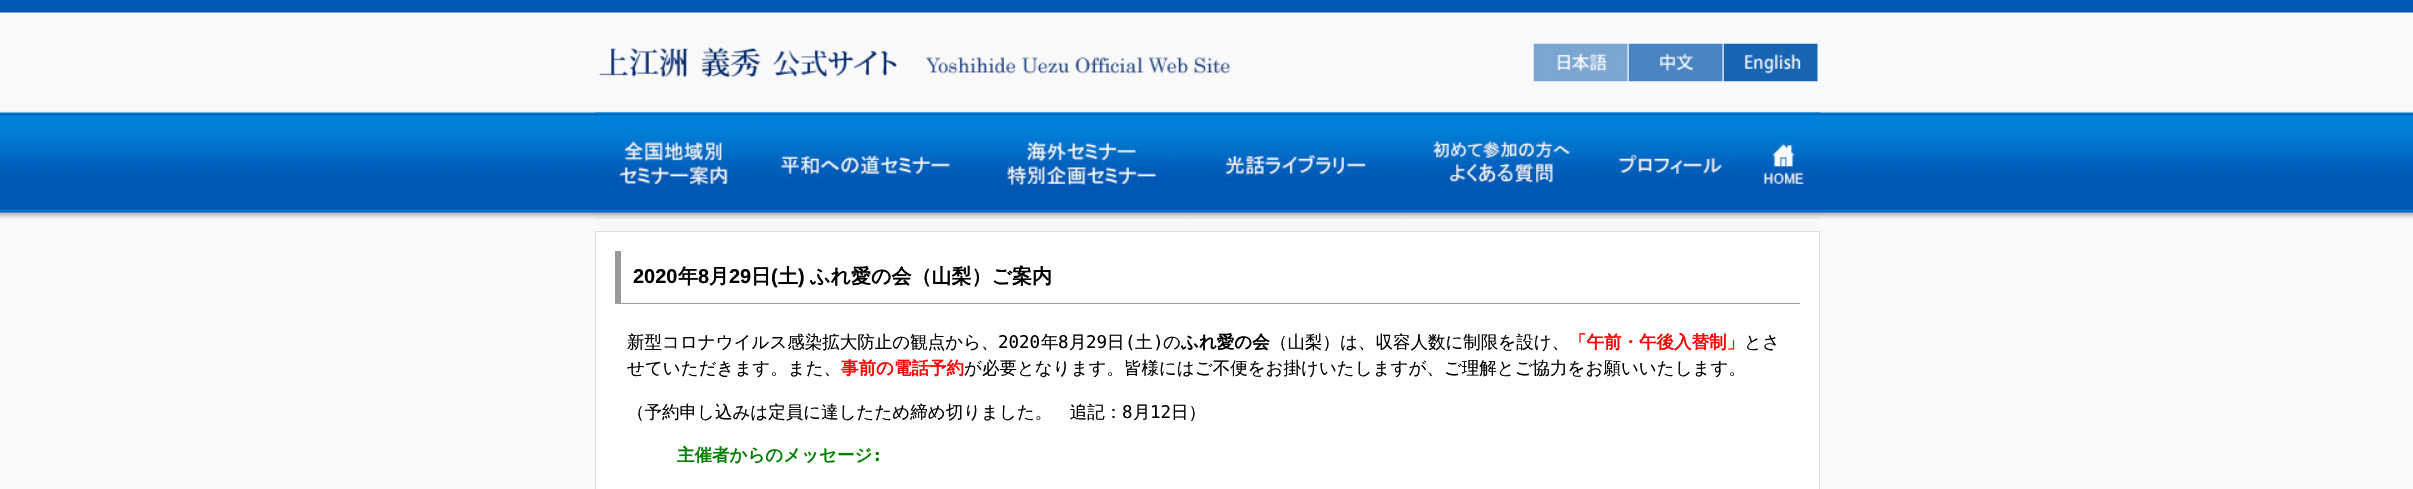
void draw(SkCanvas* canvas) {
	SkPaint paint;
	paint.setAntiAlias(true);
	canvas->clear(0xfff9f9f9);
	canvas->drawImageRect(SkImages::DeferredFromEncodedData(SkData::MakeFromFileName("img1.png")), SkRect::MakeXYWH(0, 0, 2413, 219), SkSamplingOptions());
	canvas->drawImageRect(SkImages::DeferredFromEncodedData(SkData::MakeFromFileName("img2.png")), SkRect::MakeXYWH(598, 47, 633, 33), SkSamplingOptions());
	canvas->drawImageRect(SkImages::DeferredFromEncodedData(SkData::MakeFromFileName("img3.png")), SkRect::MakeXYWH(1533, 43, 95, 39), SkSamplingOptions());
	canvas->drawImageRect(SkImages::DeferredFromEncodedData(SkData::MakeFromFileName("img4.png")), SkRect::MakeXYWH(1628, 43, 95, 39), SkSamplingOptions());
	canvas->drawImageRect(SkImages::DeferredFromEncodedData(SkData::MakeFromFileName("img5.png")), SkRect::MakeXYWH(1723, 43, 95, 39), SkSamplingOptions());
	canvas->drawImageRect(SkImages::DeferredFromEncodedData(SkData::MakeFromFileName("img6.png")), SkRect::MakeXYWH(595, 112, 163, 107), SkSamplingOptions());
	canvas->drawImageRect(SkImages::DeferredFromEncodedData(SkData::MakeFromFileName("img7.png")), SkRect::MakeXYWH(757, 112, 213, 107), SkSamplingOptions());
	canvas->drawImageRect(SkImages::DeferredFromEncodedData(SkData::MakeFromFileName("img8.png")), SkRect::MakeXYWH(970, 112, 219, 107), SkSamplingOptions());
	canvas->drawImageRect(SkImages::DeferredFromEncodedData(SkData::MakeFromFileName("img9.png")), SkRect::MakeXYWH(1188, 112, 214, 107), SkSamplingOptions());
	canvas->drawImageRect(SkImages::DeferredFromEncodedData(SkData::MakeFromFileName("img10.png")), SkRect::MakeXYWH(1401, 112, 194, 107), SkSamplingOptions());
	canvas->drawImageRect(SkImages::DeferredFromEncodedData(SkData::MakeFromFileName("img11.png")), SkRect::MakeXYWH(1595, 112, 150, 107), SkSamplingOptions());
	canvas->drawImageRect(SkImages::DeferredFromEncodedData(SkData::MakeFromFileName("img12.png")), SkRect::MakeXYWH(1745, 112, 75, 107), SkSamplingOptions());
	paint.setColor(0xffffffff);
	canvas->drawRect(SkRect::MakeXYWH(595.5, 231.5, 1224, 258), paint);
	paint.setStroke(true);
	paint.setStrokeWidth(1);
	paint.setColor(0xffdddddd);
	canvas->drawRect(SkRect::MakeXYWH(595.5, 231.5, 1224, 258), paint);
	paint.setStroke(false);
	paint.setColor(0xff999999);
	canvas->drawRect(SkRect::MakeXYWH(615, 303, 1185, 1), paint);
	canvas->drawRect(SkRect::MakeXYWH(615, 251, 6, 53), paint);
	SkFont f1(fontMgr->matchFamilyStyle("Liberation Sans", SkFontStyle::Bold()), 20);
	f1.setSubpixel(true);
	paint.setColor(0xff000000);
	canvas->drawString("2020", 633, 283, f1, paint);
	SkFont f2(fontMgr->matchFamilyStyle("WenQuanYi Zen Hei", SkFontStyle::Bold()), 20);
	f2.setSubpixel(true);
	canvas->drawString("年", 678, 283, f2, paint);
	canvas->drawString("8", 698, 283, f1, paint);
	canvas->drawString("月", 709, 283, f2, paint);
	canvas->drawString("29", 729, 283, f1, paint);
	canvas->drawString("日", 751, 283, f2, paint);
	canvas->drawString("(", 771, 283, f1, paint);
	canvas->drawString("土", 778, 283, f2, paint);
	canvas->drawString(")", 798, 283, f1, paint);
	canvas->drawString("ふれ愛の会（山梨）ご案内", 810, 283, f2, paint);
	SkFont f3(fontMgr->matchFamilyStyle("WenQuanYi Zen Hei", SkFontStyle(500, SkFontStyle::kNormal_Width, SkFontStyle::kUpright_Slant)), 17.5);
	f3.setSubpixel(true);
	canvas->drawString("新型コロナウイルス感染拡大防止の観点から、", 627, 348, f3, paint);
	SkFont f4(fontMgr->matchFamilyStyle("DejaVu Sans Mono", SkFontStyle::Normal()), 17.5);
	f4.setSubpixel(true);
	canvas->drawString("2020", 998, 348, f4, paint);
	canvas->drawString("年", 1041, 348, f3, paint);
	canvas->drawString("8", 1058, 348, f4, paint);
	canvas->drawString("月", 1069, 348, f3, paint);
	canvas->drawString("29", 1086, 348, f4, paint);
	canvas->drawString("日", 1107, 348, f3, paint);
	canvas->drawString("(", 1125, 348, f4, paint);
	canvas->drawString("土", 1135, 348, f3, paint);
	canvas->drawString(")", 1153, 348, f4, paint);
	canvas->drawString("の", 1163, 348, f3, paint);
	SkFont f5(fontMgr->matchFamilyStyle("WenQuanYi Zen Hei", SkFontStyle::Bold()), 17.5);
	f5.setSubpixel(true);
	canvas->drawString("ふれ愛の会", 1181, 348, f5, paint);
	canvas->drawString("（山梨）は、収容人数に制限を設け、", 1270, 348, f3, paint);
	paint.setColor(0xffff0000);
	canvas->drawString("「午前・午後入替制」", 1569, 348, f5, paint);
	paint.setColor(0xff000000);
	canvas->drawString("とさ", 1744, 348, f3, paint);
	canvas->drawString("せていただきます。また、", 627, 374, f3, paint);
	paint.setColor(0xffff0000);
	canvas->drawString("事前の電話予約", 841, 374, f5, paint);
	paint.setColor(0xff000000);
	canvas->drawString("が必要となります。皆様にはご不便をお掛けいたしますが、ご理解とご協力をお願いいたします。", 964, 374, f3, paint);
	canvas->drawString("（予約申し込みは定員に達したため締め切りました。　追記：", 627, 418, f3, paint);
	canvas->drawString("8", 1122, 418, f4, paint);
	canvas->drawString("月", 1133, 418, f3, paint);
	canvas->drawString("12", 1150, 418, f4, paint);
	canvas->drawString("日）", 1171, 418, f3, paint);
	paint.setColor(0xff008000);
	canvas->drawString("主催者からのメッセージ", 677, 461, f5, paint);
	SkFont f6(fontMgr->matchFamilyStyle("DejaVu Sans Mono", SkFontStyle::Bold()), 17.5);
	f6.setSubpixel(true);
	canvas->drawString(":", 872, 461, f6, paint);
}
